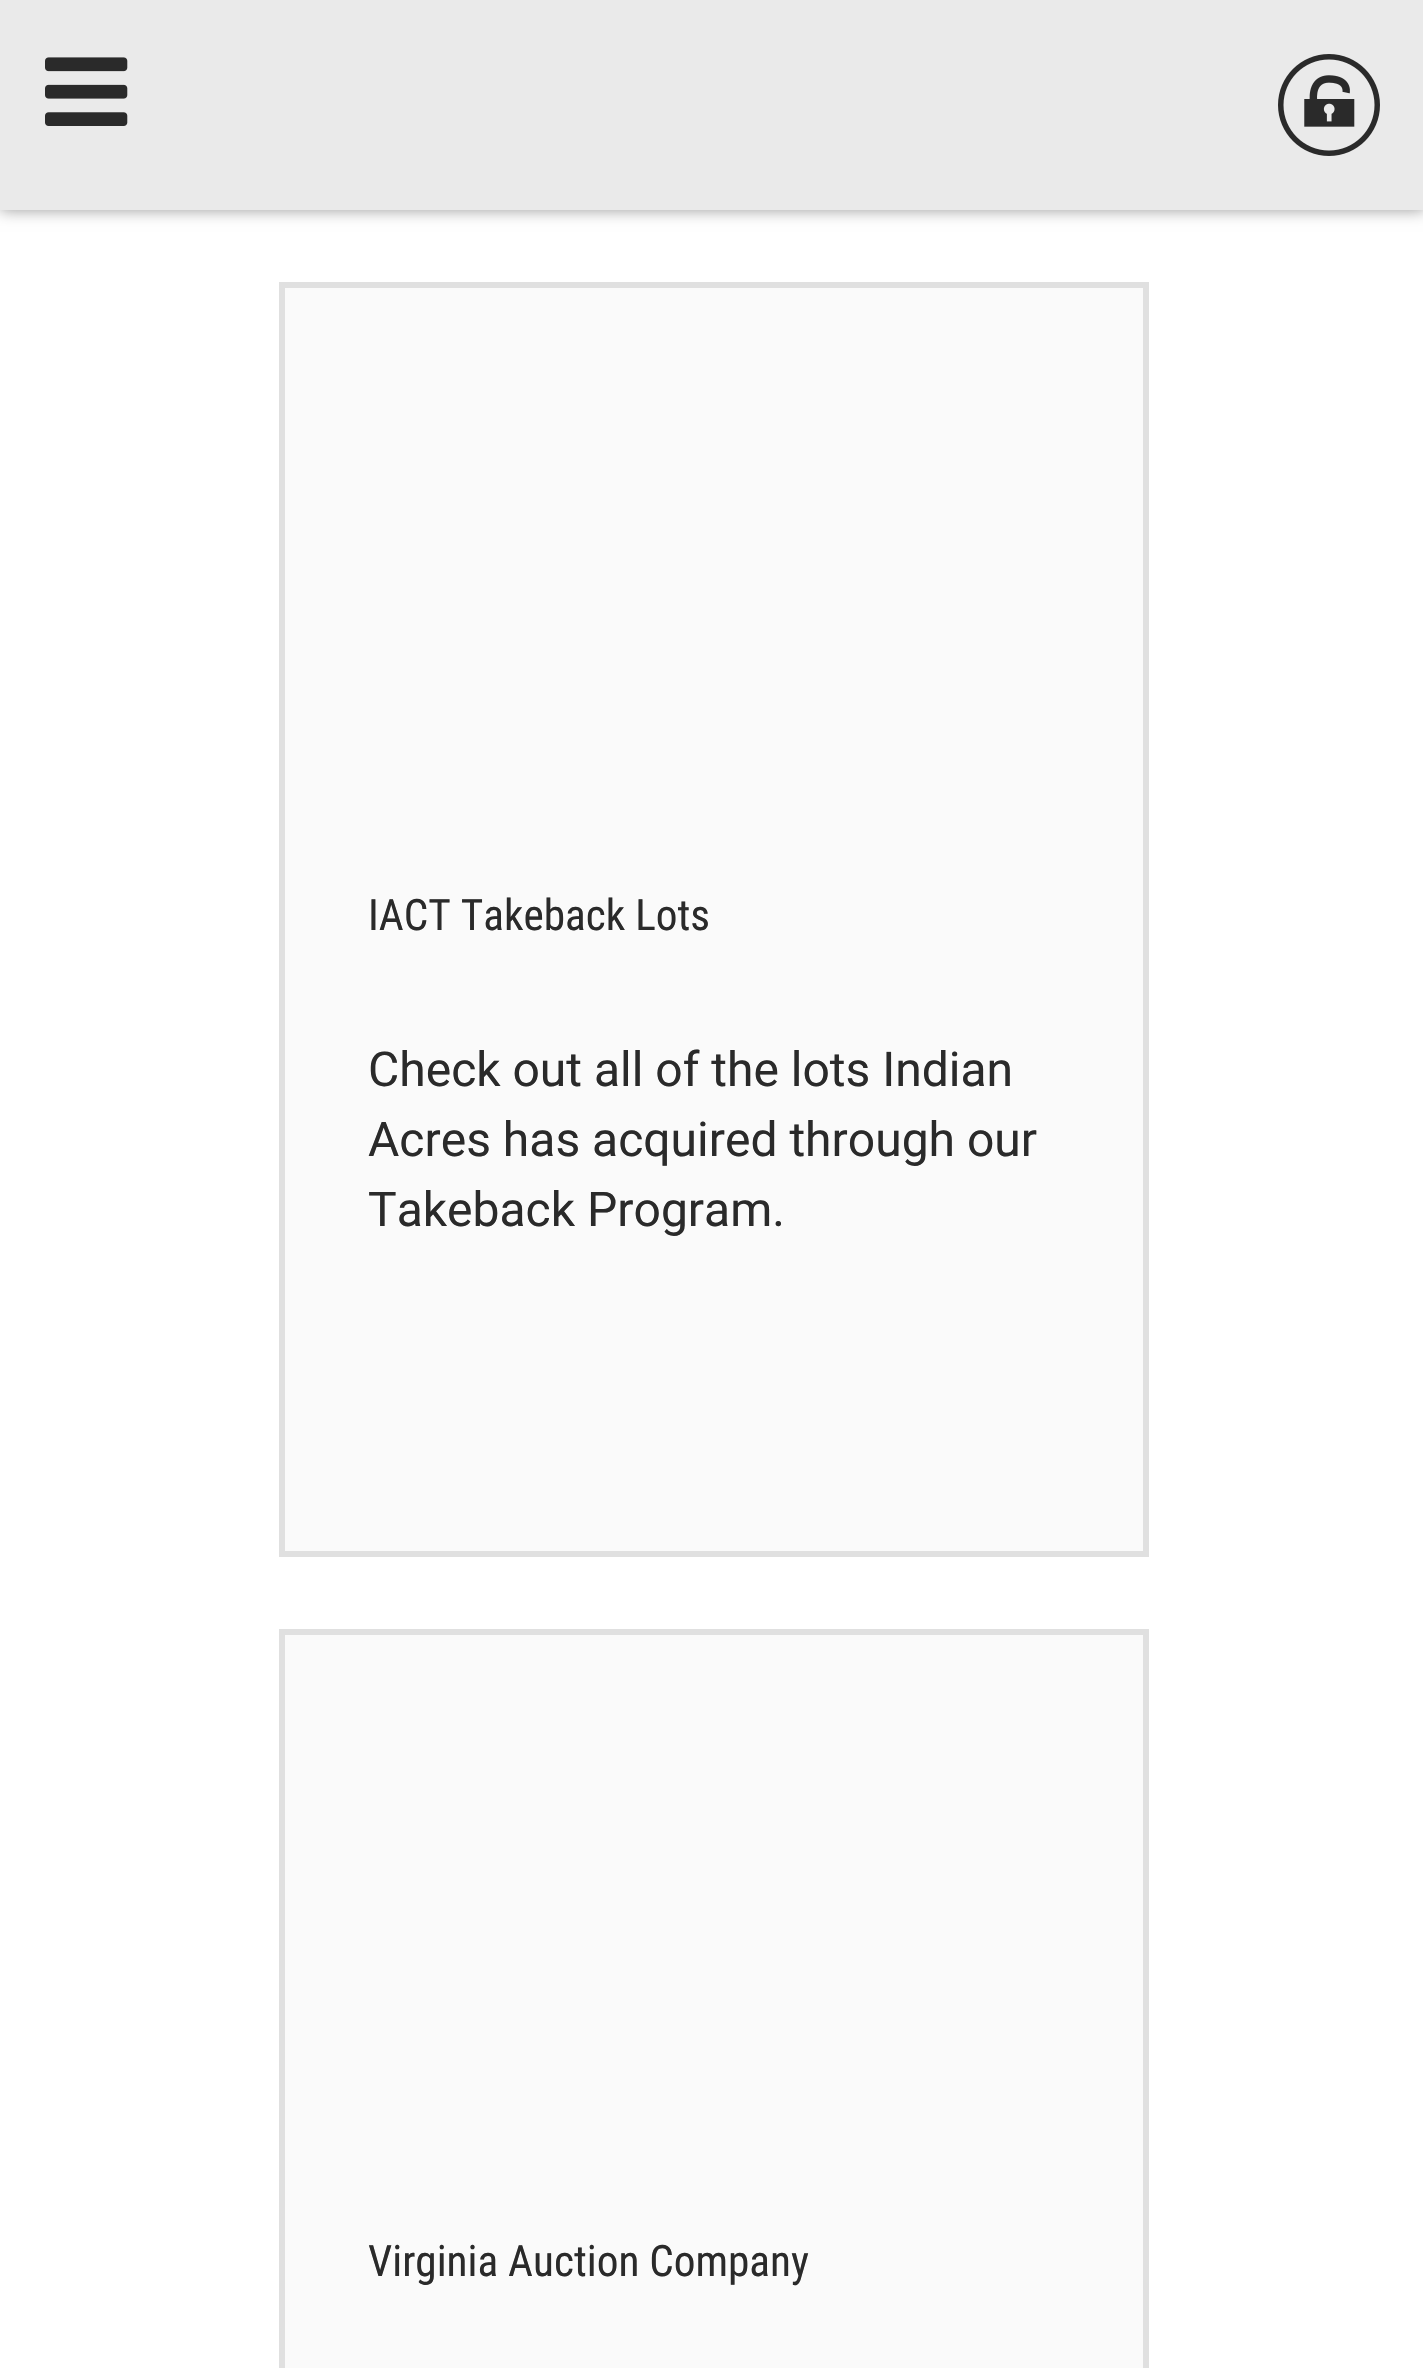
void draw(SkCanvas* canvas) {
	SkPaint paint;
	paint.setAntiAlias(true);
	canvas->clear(0xffffffff);
	paint.setColor(0x66000000);
	paint.setMaskFilter(SkMaskFilter::MakeBlur(kNormal_SkBlurStyle, 7.5));
	canvas->drawRect(SkRect::MakeXYWH(0, 0, 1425, 210), paint);
	paint.setMaskFilter(nullptr);
	paint.setColor(0xffeaeaea);
	canvas->drawRect(SkRect::MakeXYWH(0, 0, 1423, 210), paint);
	canvas->drawImageRect(SkImages::DeferredFromEncodedData(SkData::MakeFromFileName("img1.png")), SkRect::MakeXYWH(45, 57, 83, 69), SkSamplingOptions());
	canvas->drawImageRect(SkImages::DeferredFromEncodedData(SkData::MakeFromFileName("img2.png")), SkRect::MakeXYWH(1278, 54, 102, 102), SkSamplingOptions());
	paint.setColor(0xfffafafa);
	canvas->drawRect(SkRect::MakeXYWH(282, 285, 864, 1269), paint);
	paint.setStroke(true);
	paint.setStrokeWidth(6);
	paint.setColor(0xffe0e0e0);
	canvas->drawRect(SkRect::MakeXYWH(282, 285, 864, 1269), paint);
	SkFont f1(fontMgr->matchFamilyStyle("Roboto Condensed", SkFontStyle::Normal()), 43.25);
	f1.setSubpixel(true);
	paint.setStroke(false);
	paint.setColor(0xff2a2a2a);
	canvas->drawString("IACT Takeback Lots", 368, 930, f1, paint);
	SkFont f2(fontMgr->matchFamilyStyle("Roboto", SkFontStyle::Normal()), 48);
	f2.setSubpixel(true);
	canvas->drawString("Check out all of the lots Indian", 368, 1086, f2, paint);
	canvas->drawString("Acres has acquired through our", 368, 1156, f2, paint);
	canvas->drawString("Takeback Program.", 368, 1226, f2, paint);
	paint.setColor(0xfffafafa);
	canvas->drawRect(SkRect::MakeXYWH(282, 1632, 864, 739), paint);
	paint.setStroke(true);
	paint.setColor(0xffe0e0e0);
	canvas->drawRect(SkRect::MakeXYWH(282, 1632, 864, 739), paint);
	paint.setStroke(false);
	paint.setColor(0xff2a2a2a);
	canvas->drawString("Virginia Auction Company", 368, 2276, f1, paint);
}
